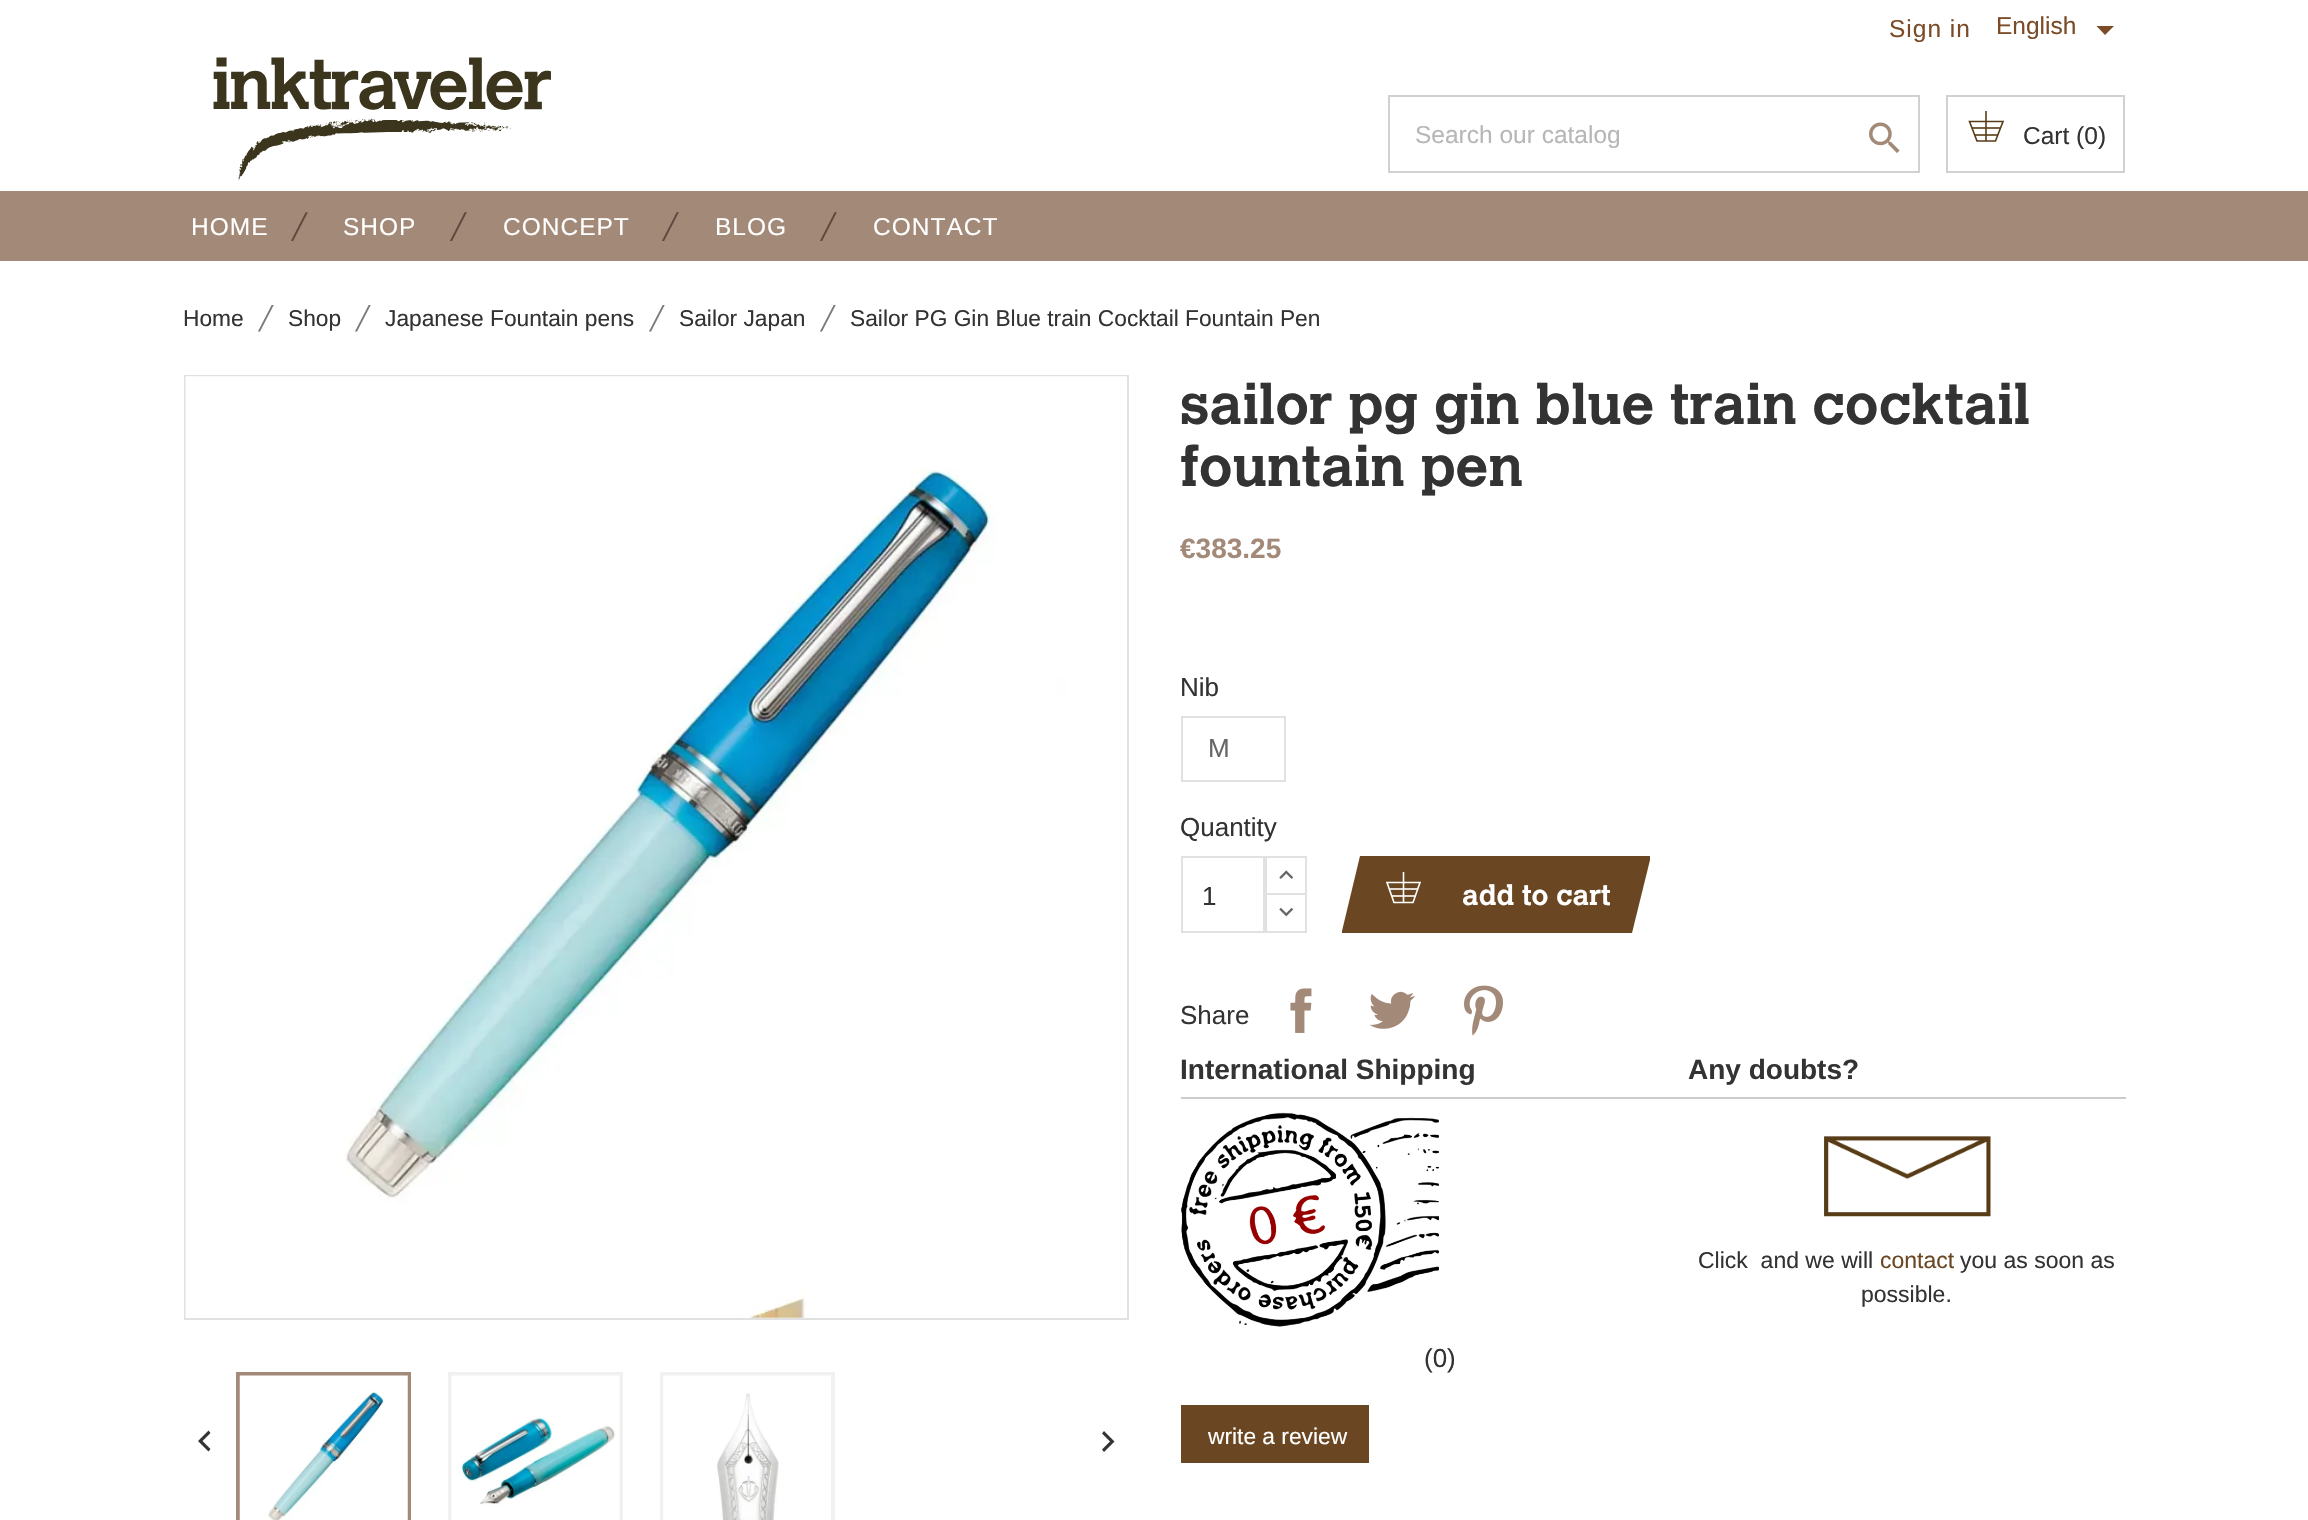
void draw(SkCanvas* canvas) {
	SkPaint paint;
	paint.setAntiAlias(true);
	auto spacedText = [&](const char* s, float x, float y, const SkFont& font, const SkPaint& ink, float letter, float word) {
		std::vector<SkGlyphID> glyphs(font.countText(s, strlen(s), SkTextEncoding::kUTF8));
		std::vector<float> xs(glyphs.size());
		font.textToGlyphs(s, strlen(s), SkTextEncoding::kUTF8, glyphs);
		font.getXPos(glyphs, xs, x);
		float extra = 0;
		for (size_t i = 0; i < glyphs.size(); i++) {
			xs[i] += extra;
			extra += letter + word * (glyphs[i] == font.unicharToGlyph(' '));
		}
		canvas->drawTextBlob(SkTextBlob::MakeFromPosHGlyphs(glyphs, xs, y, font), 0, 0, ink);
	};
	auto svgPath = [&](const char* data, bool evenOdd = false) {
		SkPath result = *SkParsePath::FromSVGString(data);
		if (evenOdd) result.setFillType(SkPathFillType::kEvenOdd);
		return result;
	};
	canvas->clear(0xffffffff);
	SkFont f1(fontMgr->matchFamilyStyle("Liberation Sans", SkFontStyle::Normal()), 24.5);
	f1.setSubpixel(true);
	paint.setColor(0xff7b4b28);
	spacedText("Sign in", 1889, 37, f1, paint, 1, 0);
	canvas->drawString("English", 1996, 34, f1, paint);
	canvas->drawPath(svgPath("M2096.5 26H2114L2105 35Z"), paint);
	canvas->drawImageRect(SkImages::DeferredFromEncodedData(SkData::MakeFromFileName("img1.png")), SkRect::MakeXYWH(213, 57, 338, 123), SkSamplingOptions());
	paint.setStroke(true);
	paint.setStrokeWidth(2);
	paint.setColor(0xffd1d1d1);
	canvas->drawRect(SkRect::MakeXYWH(1389, 96, 530, 76), paint);
	paint.setStroke(false);
	paint.setColor(0xffb7b7b7);
	canvas->drawString("Search our catalog", 1415, 143, f1, paint);
	canvas->drawImageRect(SkImages::DeferredFromEncodedData(SkData::MakeFromFileName("img2.png")), SkRect::MakeXYWH(1869, 122, 31, 31), SkSamplingOptions());
	paint.setStroke(true);
	paint.setColor(0xffd1d1d1);
	canvas->drawRect(SkRect::MakeXYWH(1947, 96, 177, 76), paint);
	paint.setStrokeWidth(1.6);
	paint.setColor(0xff583c17);
	canvas->drawPath(svgPath("M1995.5 141H1977L1969.5 121.5H2003Z"), paint);
	paint.setStroke(false);
	paint.setColor(0xcc583c17);
	canvas->drawRect(SkRect::MakeXYWH(1972, 127, 29, 2), paint);
	canvas->drawRect(SkRect::MakeXYWH(1975, 134, 23, 2), paint);
	canvas->drawRect(SkRect::MakeXYWH(1985, 111, 2, 30), paint);
	paint.setColor(0xff333333);
	canvas->drawString("Cart (0)", 2023, 144, f1, paint);
	paint.setColor(0xffa38977);
	canvas->drawRect(SkRect::MakeXYWH(0, 191, 2308, 70), paint);
	paint.setColor(0xffffffff);
	spacedText("HOME", 191, 235, f1, paint, 1, 0);
	SkFont f2(fontMgr->matchFamilyStyle("DejaVu Sans", SkFontStyle::Normal()), 24.5);
	f2.setSubpixel(true);
	paint.setColor(0xff5e4a3e);
	spacedText("╱", 292, 235, f2, paint, 1, 0);
	paint.setColor(0xffffffff);
	spacedText("SHOP", 343, 235, f1, paint, 1, 0);
	paint.setColor(0xff5e4a3e);
	spacedText("╱", 451, 235, f2, paint, 1, 0);
	paint.setColor(0xffffffff);
	spacedText("CONCEPT", 503, 235, f1, paint, 1, 0);
	paint.setColor(0xff5e4a3e);
	spacedText("╱", 663, 235, f2, paint, 1, 0);
	paint.setColor(0xffffffff);
	spacedText("BLOG", 715, 235, f1, paint, 1, 0);
	paint.setColor(0xff5e4a3e);
	spacedText("╱", 821, 235, f2, paint, 1, 0);
	paint.setColor(0xffffffff);
	spacedText("CONTACT", 873, 235, f1, paint, 1, 0);
	SkFont f3(fontMgr->matchFamilyStyle("Liberation Sans", SkFontStyle::Normal()), 22.75);
	f3.setSubpixel(true);
	paint.setColor(0xff333333);
	canvas->drawString("Home", 183, 326, f3, paint);
	SkFont f4(fontMgr->matchFamilyStyle("DejaVu Sans", SkFontStyle::Normal()), 22.75);
	f4.setSubpixel(true);
	paint.setColor(0xff7a7a7a);
	canvas->drawString("╱", 259, 326, f4, paint);
	paint.setColor(0xff333333);
	canvas->drawString("Shop", 288, 326, f3, paint);
	paint.setColor(0xff7a7a7a);
	canvas->drawString("╱", 356, 326, f4, paint);
	paint.setColor(0xff333333);
	canvas->drawString("Japanese Fountain pens", 385, 326, f3, paint);
	paint.setColor(0xff7a7a7a);
	canvas->drawString("╱", 650, 326, f4, paint);
	paint.setColor(0xff333333);
	canvas->drawString("Sailor Japan", 679, 326, f3, paint);
	paint.setColor(0xff7a7a7a);
	canvas->drawString("╱", 821, 326, f4, paint);
	paint.setColor(0xff333333);
	canvas->drawString("Sailor PG Gin Blue train Cocktail Fountain Pen", 850, 326, f3, paint);
	paint.setStroke(true);
	paint.setStrokeWidth(2);
	paint.setColor(0xffe1e1e1);
	canvas->drawRect(SkRect::MakeXYWH(185, 376, 943, 943), paint);
	canvas->drawImageRect(SkImages::DeferredFromEncodedData(SkData::MakeFromFileName("img3.png")), SkRect::MakeXYWH(185, 376, 942, 942), SkSamplingOptions());
	paint.setStrokeWidth(4);
	paint.setColor(0xffa38977);
	canvas->drawRect(SkRect::MakeXYWH(238, 1374, 171, 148), paint);
	canvas->drawImageRect(SkImages::DeferredFromEncodedData(SkData::MakeFromFileName("img4.png")), SkRect::MakeXYWH(239, 1375, 169, 145), SkSamplingOptions());
	paint.setColor(0xfff1f1f1);
	canvas->drawRect(SkRect::MakeXYWH(450, 1374, 171, 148), paint);
	canvas->drawImageRect(SkImages::DeferredFromEncodedData(SkData::MakeFromFileName("img5.png")), SkRect::MakeXYWH(451, 1375, 169, 145), SkSamplingOptions());
	canvas->drawRect(SkRect::MakeXYWH(662, 1374, 171, 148), paint);
	canvas->drawImageRect(SkImages::DeferredFromEncodedData(SkData::MakeFromFileName("img6.png")), SkRect::MakeXYWH(663, 1375, 168, 145), SkSamplingOptions());
	paint.setStroke(false);
	paint.setColor(0xff333333);
	canvas->drawPath(svgPath("M210.5 1449L208.5 1451.5L198 1441L208.5 1430.5L210.5 1433L202.5 1441Z"), paint);
	canvas->drawPath(svgPath("M1102 1449.5L1110 1441.5L1102 1433.5L1104 1431L1114.5 1441.5L1104 1452Z"), paint);
	SkFont f5(fontMgr->matchFamilyStyle("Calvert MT", SkFontStyle::Bold()), 56);
	f5.setSubpixel(true);
	canvas->drawString("sailor pg gin blue train cocktail", 1180, 424, f5, paint);
	canvas->drawString("fountain pen", 1180, 486, f5, paint);
	SkFont f6(fontMgr->matchFamilyStyle("Liberation Sans", SkFontStyle::Bold()), 28);
	f6.setSubpixel(true);
	paint.setColor(0xffa38977);
	canvas->drawString("€383.25", 1180, 558, f6, paint);
	SkFont f7(fontMgr->matchFamilyStyle("Liberation Sans", SkFontStyle::Normal()), 26);
	f7.setSubpixel(true);
	paint.setColor(0xff333333);
	canvas->drawString("Nib", 1180, 696, f7, paint);
	paint.setStroke(true);
	paint.setStrokeWidth(2);
	paint.setColor(0xffe1e1e1);
	canvas->drawRect(SkRect::MakeXYWH(1182, 717, 103, 64), paint);
	paint.setStroke(false);
	paint.setColor(0xff666666);
	canvas->drawString("M", 1208, 757, f7, paint);
	paint.setColor(0xff333333);
	canvas->drawString("Quantity", 1180, 836, f7, paint);
	paint.setStroke(true);
	paint.setColor(0xffe1e1e1);
	canvas->drawRect(SkRect::MakeXYWH(1182, 857, 82, 75), paint);
	paint.setStroke(false);
	paint.setColor(0xff333333);
	canvas->drawString("1", 1202, 905, f7, paint);
	paint.setStroke(true);
	paint.setColor(0xffe1e1e1);
	canvas->drawRect(SkRect::MakeXYWH(1266, 857, 40, 38), paint);
	canvas->drawImageRect(SkImages::DeferredFromEncodedData(SkData::MakeFromFileName("img7.png")), SkRect::MakeXYWH(1279, 870, 15, 9), SkSamplingOptions());
	paint.setStroke(false);
	paint.setColor(0xffffffff);
	canvas->drawRect(SkRect::MakeXYWH(1267, 895, 38, 1), paint);
	paint.setStroke(true);
	paint.setColor(0xffe1e1e1);
	canvas->drawRect(SkRect::MakeXYWH(1266, 894, 40, 38), paint);
	canvas->drawImageRect(SkImages::DeferredFromEncodedData(SkData::MakeFromFileName("img8.png")), SkRect::MakeXYWH(1279, 907, 15, 10), SkSamplingOptions());
	paint.setStroke(false);
	paint.setColor(0xff6a4722);
	canvas->drawPath(svgPath("M1360 856H1650V860L1632 933H1342V931Z"), paint);
	paint.setStroke(true);
	paint.setStrokeWidth(1.6);
	paint.setColor(0xffffffff);
	canvas->drawPath(svgPath("M1413 902.5H1394L1387 882.5H1420Z"), paint);
	paint.setStroke(false);
	paint.setColor(0xccffffff);
	canvas->drawRect(SkRect::MakeXYWH(1390, 888, 28, 2), paint);
	canvas->drawRect(SkRect::MakeXYWH(1392, 895, 23, 2), paint);
	canvas->save();
	canvas->clipRect(SkRect::MakeXYWH(1383, 872, 40, 42));
	paint.setStroke(true);
	paint.setColor(0xffffffff);
	canvas->drawPath(svgPath("M1403.5 902.5V871.5"), paint);
	canvas->restore();
	SkFont f8(fontMgr->matchFamilyStyle("Calvert MT", SkFontStyle::Bold()), 28);
	f8.setSubpixel(true);
	paint.setStroke(false);
	canvas->drawString("add to cart", 1462, 905, f8, paint);
	paint.setColor(0xff333333);
	canvas->drawString("Share", 1180, 1024, f7, paint);
	canvas->drawImageRect(SkImages::DeferredFromEncodedData(SkData::MakeFromFileName("img9.png")), SkRect::MakeXYWH(1290, 988, 22, 45), SkSamplingOptions());
	canvas->drawImageRect(SkImages::DeferredFromEncodedData(SkData::MakeFromFileName("img10.png")), SkRect::MakeXYWH(1369, 991, 46, 38), SkSamplingOptions());
	canvas->drawImageRect(SkImages::DeferredFromEncodedData(SkData::MakeFromFileName("img11.png")), SkRect::MakeXYWH(1464, 985, 39, 51), SkSamplingOptions());
	canvas->drawString("International Shipping", 1180, 1079, f6, paint);
	canvas->drawImageRect(SkImages::DeferredFromEncodedData(SkData::MakeFromFileName("img12.png")), SkRect::MakeXYWH(1181, 1112, 258, 215), SkSamplingOptions());
	canvas->drawString("Any doubts?", 1688, 1079, f6, paint);
	canvas->drawImageRect(SkImages::DeferredFromEncodedData(SkData::MakeFromFileName("img13.png")), SkRect::MakeXYWH(1824, 1136, 167, 81), SkSamplingOptions());
	SkFont f9(fontMgr->matchFamilyStyle("Liberation Sans", SkFontStyle::Normal()), 23);
	f9.setSubpixel(true);
	canvas->drawString("Click  and we will", 1698, 1268, f9, paint);
	paint.setColor(0xff6a4722);
	canvas->drawString("contact", 1880, 1268, f9, paint);
	paint.setColor(0xff333333);
	canvas->drawString("you as soon as", 1960, 1268, f9, paint);
	canvas->drawString("possible.", 1861, 1302, f9, paint);
	paint.setColor(0xffcccccc);
	canvas->drawRect(SkRect::MakeXYWH(1181, 1097, 945, 2), paint);
	paint.setColor(0xff333333);
	canvas->drawString("(0)", 1424, 1367, f7, paint);
	paint.setColor(0xff6a4722);
	canvas->drawRect(SkRect::MakeXYWH(1181, 1405, 188, 58), paint);
	paint.setColor(0xffffffff);
	canvas->drawString("write a review", 1208, 1444, f3, paint);
}
